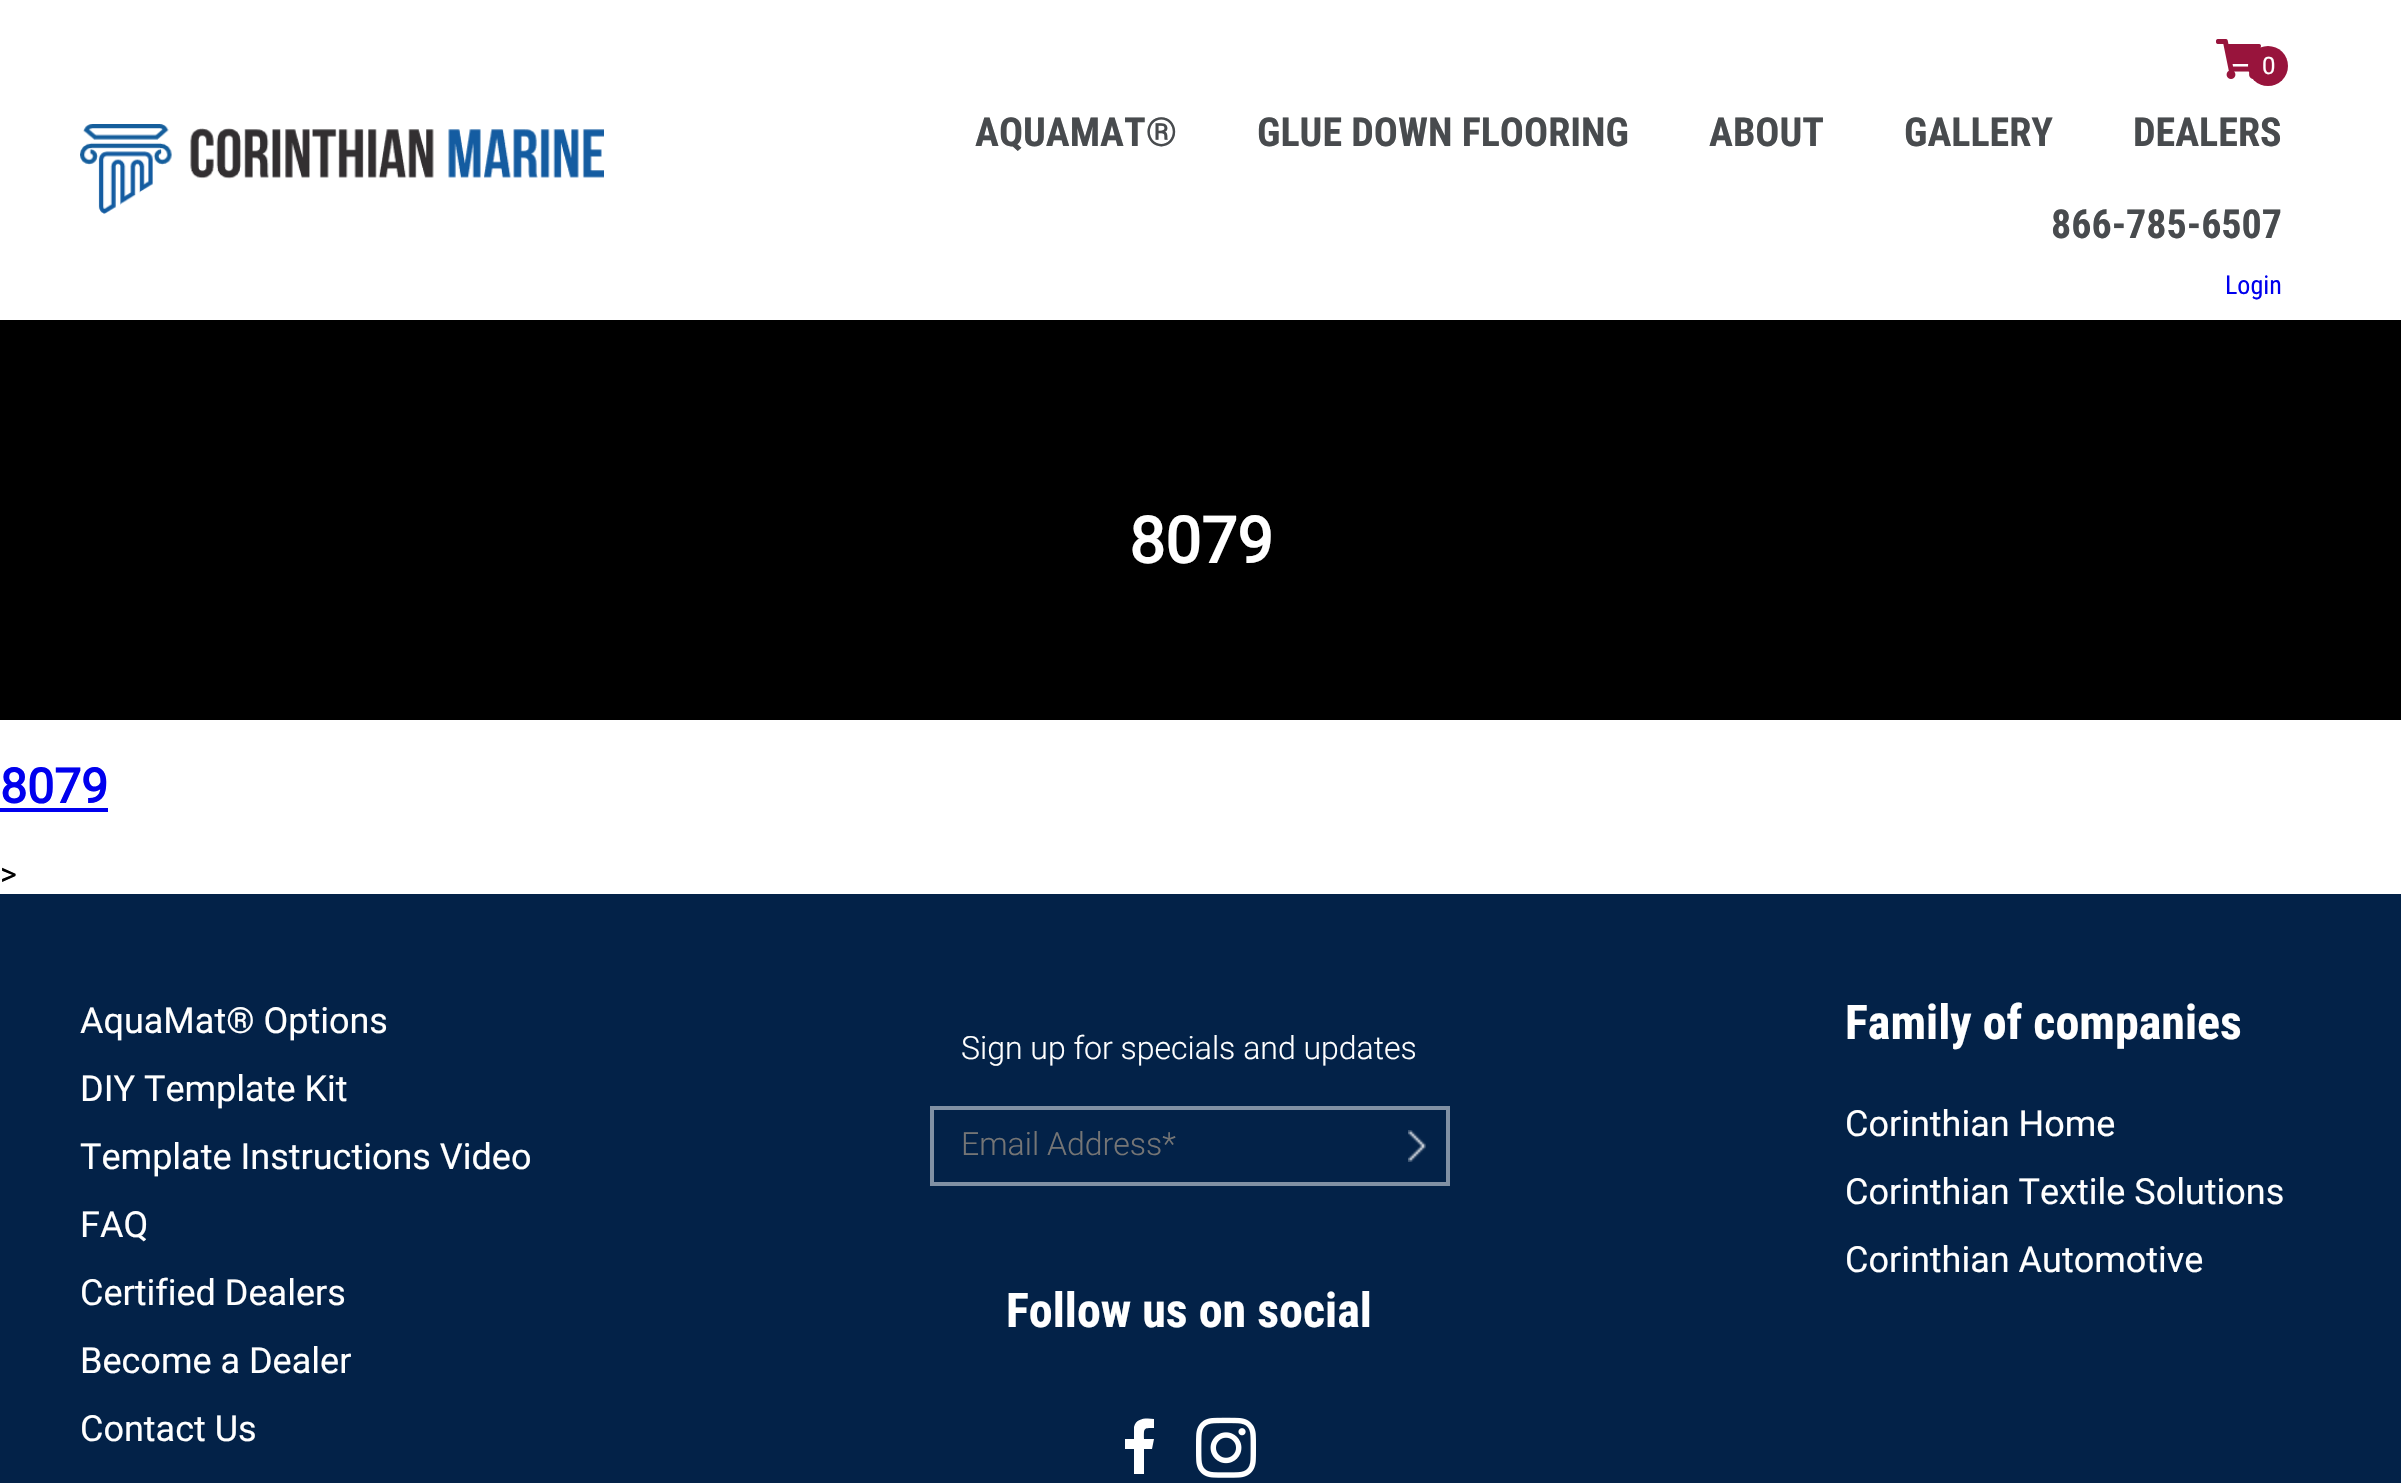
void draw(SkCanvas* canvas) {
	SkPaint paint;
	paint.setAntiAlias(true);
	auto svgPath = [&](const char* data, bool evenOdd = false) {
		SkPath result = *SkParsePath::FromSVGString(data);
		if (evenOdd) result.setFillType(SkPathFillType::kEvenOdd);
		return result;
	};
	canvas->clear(0xffffffff);
	canvas->drawImageRect(SkImages::DeferredFromEncodedData(SkData::MakeFromFileName("img1.png")), SkRect::MakeXYWH(80, 124, 524, 90), SkSamplingOptions());
	canvas->drawImageRect(SkImages::DeferredFromEncodedData(SkData::MakeFromFileName("img2.png")), SkRect::MakeXYWH(2216, 39, 45, 40), SkSamplingOptions());
	paint.setColor(0xff98143c);
	canvas->drawCircle(2268, 66, 20, paint);
	SkFont f1(fontMgr->matchFamilyStyle("Roboto", SkFontStyle::Normal()), 24);
	f1.setSubpixel(true);
	paint.setColor(0xffffffff);
	canvas->drawString("0", 2262, 74, f1, paint);
	SkFont f2(fontMgr->matchFamilyStyle("Roboto Condensed", SkFontStyle::Bold()), 40);
	f2.setSubpixel(true);
	paint.setColor(0xff484b4e);
	canvas->drawString("AQUAMAT®", 975, 146, f2, paint);
	canvas->drawString("GLUE DOWN FLOORING", 1257, 146, f2, paint);
	canvas->drawString("ABOUT", 1709, 146, f2, paint);
	canvas->drawString("GALLERY", 1904, 146, f2, paint);
	canvas->drawString("DEALERS", 2133, 146, f2, paint);
	canvas->drawString("866-785-6507", 2051, 238, f2, paint);
	SkFont f3(fontMgr->matchFamilyStyle("Roboto Condensed", SkFontStyle::Normal()), 26);
	f3.setSubpixel(true);
	paint.setColor(0xff0000ee);
	canvas->drawString("Login", 2225, 294, f3, paint);
	paint.setColor(0xff000000);
	canvas->drawRect(SkRect::MakeXYWH(0, 320, 2401, 400), paint);
	SkFont f4(fontMgr->matchFamilyStyle("Roboto", SkFontStyle::Bold()), 64);
	f4.setSubpixel(true);
	paint.setColor(0xffffffff);
	canvas->drawString("8079", 1129, 563, f4, paint);
	SkFont f5(fontMgr->matchFamilyStyle("Roboto", SkFontStyle::Bold()), 48);
	f5.setSubpixel(true);
	paint.setColor(0xff0000ee);
	canvas->drawString("8079", 0, 803, f5, paint);
	canvas->drawRect(SkRect::MakeXYWH(0, 808, 108, 4), paint);
	SkFont f6(fontMgr->matchFamilyStyle("Roboto", SkFontStyle::Normal()), 32);
	f6.setSubpixel(true);
	paint.setColor(0xff000000);
	canvas->drawString(">", 0, 885, f6, paint);
	paint.setColor(0xff032248);
	canvas->drawRect(SkRect::MakeXYWH(0, 894, 2401, 589), paint);
	SkFont f7(fontMgr->matchFamilyStyle("Roboto", SkFontStyle::Normal()), 36);
	f7.setSubpixel(true);
	paint.setColor(0xffffffff);
	canvas->drawString("AquaMat® Options", 80, 1033, f7, paint);
	canvas->drawString("DIY Template Kit", 80, 1101, f7, paint);
	canvas->drawString("Template Instructions Video", 80, 1169, f7, paint);
	canvas->drawString("FAQ", 80, 1237, f7, paint);
	canvas->drawString("Certified Dealers", 80, 1305, f7, paint);
	canvas->drawString("Become a Dealer", 80, 1373, f7, paint);
	canvas->drawString("Contact Us", 80, 1441, f7, paint);
	SkFont f8(fontMgr->matchFamilyStyle("Roboto", SkFontStyle(300, SkFontStyle::kNormal_Width, SkFontStyle::kUpright_Slant)), 32);
	f8.setSubpixel(true);
	canvas->drawString("Sign up for specials and updates", 961, 1059, f8, paint);
	canvas->drawImageRect(SkImages::DeferredFromEncodedData(SkData::MakeFromFileName("img3.png")), SkRect::MakeXYWH(1408, 1130, 18, 32), SkSamplingOptions());
	paint.setStroke(true);
	paint.setStrokeWidth(4);
	paint.setColor(0xff8191a4);
	canvas->drawRect(SkRect::MakeXYWH(932, 1108, 516, 76), paint);
	paint.setStroke(false);
	paint.setColor(0xff757575);
	canvas->drawString("Email Address*", 961, 1155, f8, paint);
	SkFont f9(fontMgr->matchFamilyStyle("Roboto Condensed", SkFontStyle::Bold()), 48);
	f9.setSubpixel(true);
	paint.setColor(0xffffffff);
	canvas->drawString("Follow us on social", 1006, 1327, f9, paint);
	canvas->drawPath(svgPath("M1154 1419V1428C1143 1428 1144 1428 1144 1439H1154L1152 1449H1144V1474H1134V1449H1125V1439H1134V1427C1136 1418 1146 1418 1154 1419Z"), paint);
	canvas->drawImageRect(SkImages::DeferredFromEncodedData(SkData::MakeFromFileName("img4.png")), SkRect::MakeXYWH(1196, 1417, 60, 61), SkSamplingOptions());
	canvas->drawString("Family of companies", 1845, 1039, f9, paint);
	canvas->drawString("Corinthian Home", 1845, 1136, f7, paint);
	canvas->drawString("Corinthian Textile Solutions", 1845, 1204, f7, paint);
	canvas->drawString("Corinthian Automotive", 1845, 1272, f7, paint);
}
